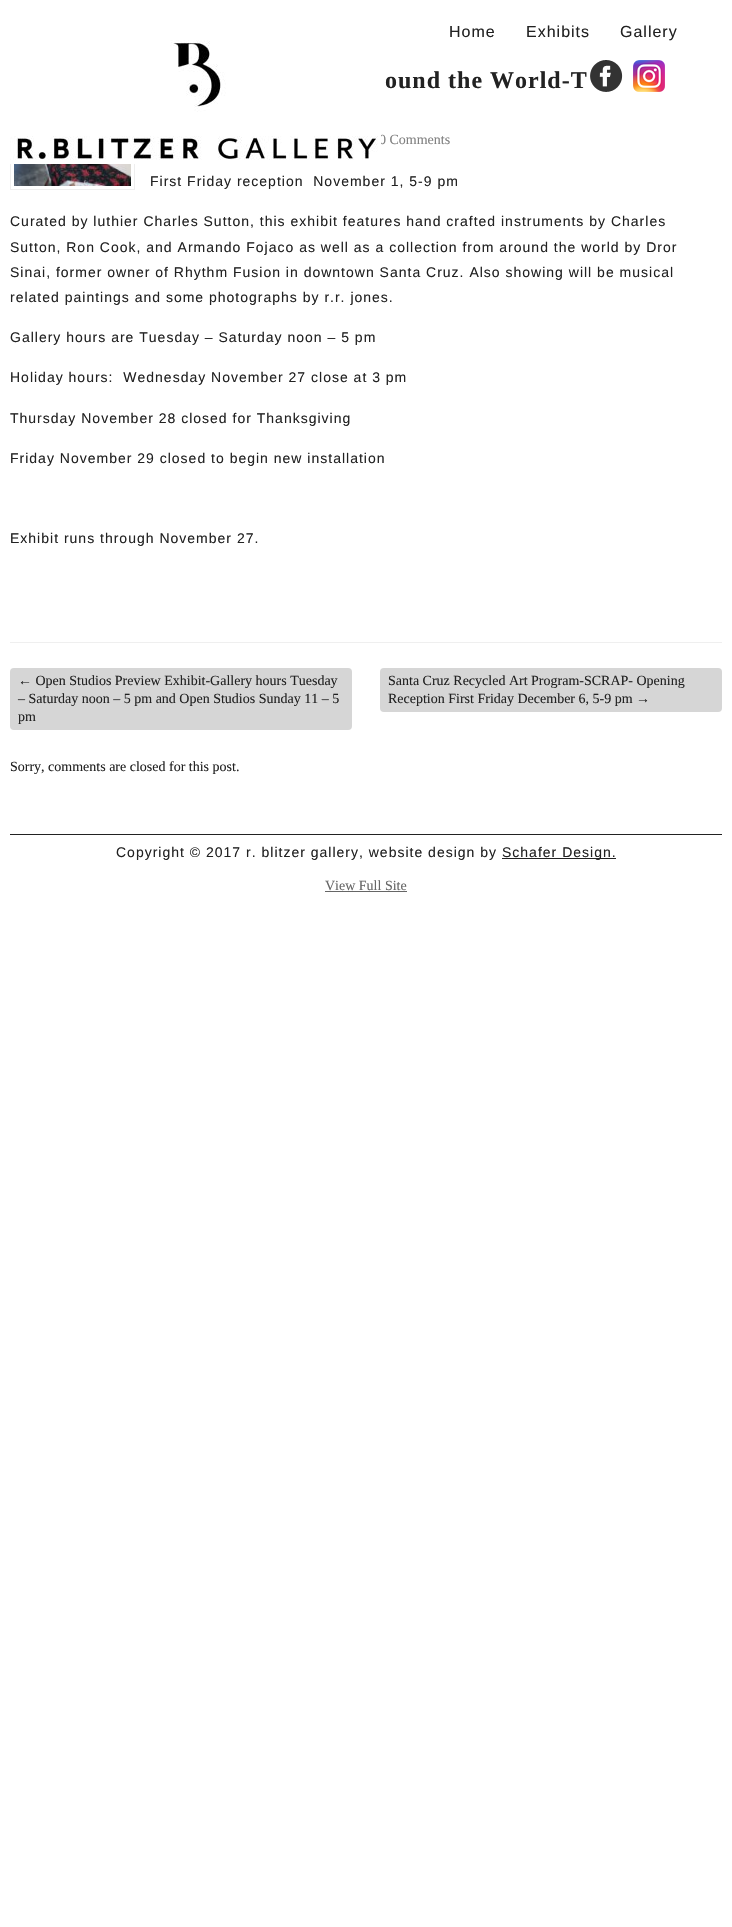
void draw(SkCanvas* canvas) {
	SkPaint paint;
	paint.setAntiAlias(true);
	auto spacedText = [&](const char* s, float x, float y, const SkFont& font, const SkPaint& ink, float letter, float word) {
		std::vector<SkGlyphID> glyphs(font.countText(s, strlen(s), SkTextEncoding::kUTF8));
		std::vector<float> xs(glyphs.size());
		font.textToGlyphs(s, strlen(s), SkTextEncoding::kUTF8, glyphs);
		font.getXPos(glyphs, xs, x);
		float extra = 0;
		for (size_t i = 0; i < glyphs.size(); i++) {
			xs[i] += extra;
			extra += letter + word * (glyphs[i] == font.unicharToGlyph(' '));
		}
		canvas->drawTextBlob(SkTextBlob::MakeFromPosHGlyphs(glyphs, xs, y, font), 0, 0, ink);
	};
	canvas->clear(0xffffffff);
	SkFont f1(fontMgr->matchFamilyStyle("Liberation Sans", SkFontStyle::Normal()), 16);
	f1.setSubpixel(true);
	paint.setColor(0xff222222);
	spacedText("Home", 449, 37, f1, paint, 1, 0);
	spacedText("Exhibits", 526, 37, f1, paint, 1, 0);
	spacedText("Gallery", 620, 37, f1, paint, 1, 0);
	paint.setStroke(true);
	paint.setStrokeWidth(1);
	paint.setColor(0xffeeeeee);
	canvas->drawRect(SkRect::MakeXYWH(10.5, 65.5, 124, 124), paint);
	SkFont f2(fontMgr->matchFamilyStyle("Liberation Serif", SkFontStyle::Normal()), 14);
	f2.setSubpixel(true);
	paint.setStroke(false);
	paint.setColor(0xff818181);
	canvas->drawString("0 Comments", 379, 144, f2, paint);
	canvas->drawImageRect(SkImages::DeferredFromEncodedData(SkData::MakeFromFileName("img1.png")), SkRect::MakeXYWH(10, 40, 371, 124), SkSamplingOptions());
	canvas->drawImageRect(SkImages::DeferredFromEncodedData(SkData::MakeFromFileName("img2.png")), SkRect::MakeXYWH(590, 60, 33, 32), SkSamplingOptions());
	canvas->drawImageRect(SkImages::DeferredFromEncodedData(SkData::MakeFromFileName("img3.png")), SkRect::MakeXYWH(633, 60, 32, 32), SkSamplingOptions());
	paint.setColor(0xffefefef);
	canvas->drawRect(SkRect::MakeXYWH(10, 642, 712, 1), paint);
	canvas->drawImageRect(SkImages::DeferredFromEncodedData(SkData::MakeFromFileName("img4.png")), SkRect::MakeXYWH(14, 164, 117, 22), SkSamplingOptions());
	SkFont f3(fontMgr->matchFamilyStyle("Liberation Serif", SkFontStyle::Bold()), 24);
	f3.setSubpixel(true);
	paint.setColor(0xff222222);
	spacedText("ound the World-T", 385, 88, f3, paint, 1, 0);
	SkFont f4(fontMgr->matchFamilyStyle("Liberation Sans", SkFontStyle::Normal()), 14);
	f4.setSubpixel(true);
	spacedText("First Friday reception  November 1, 5-9 pm", 150, 186, f4, paint, 1, 0);
	spacedText("Curated by luthier Charles Sutton, this exhibit features hand crafted instruments by Charles", 10, 226, f4, paint, 1, 0);
	spacedText("Sutton, Ron Cook, and Armando Fojaco as well as a collection from around the world by Dror", 10, 252, f4, paint, 1, 0);
	spacedText("Sinai, former owner of Rhythm Fusion in downtown Santa Cruz. Also showing will be musical", 10, 277, f4, paint, 1, 0);
	spacedText("related paintings and some photographs by r.r. jones.", 10, 302, f4, paint, 1, 0);
	spacedText("Gallery hours are Tuesday – Saturday noon – 5 pm", 10, 342, f4, paint, 1, 0);
	spacedText("Holiday hours:  Wednesday November 27 close at 3 pm", 10, 382, f4, paint, 1, 0);
	spacedText("Thursday November 28 closed for Thanksgiving", 10, 423, f4, paint, 1, 0);
	spacedText("Friday November 29 closed to begin new installation", 10, 463, f4, paint, 1, 0);
	spacedText("Exhibit runs through November 27.", 10, 543, f4, paint, 1, 0);
	paint.setColor(0xffd6d6d6);
	canvas->drawRoundRect(SkRect::MakeXYWH(10, 668, 342, 62), 4, 4, paint);
	paint.setColor(0xff222222);
	canvas->drawString("← Open Studios Preview Exhibit-Gallery hours Tuesday", 18, 685, f2, paint);
	canvas->drawString("– Saturday noon – 5 pm and Open Studios Sunday 11 – 5", 18, 703, f2, paint);
	canvas->drawString("pm", 18, 721, f2, paint);
	paint.setColor(0xffd6d6d6);
	canvas->drawRoundRect(SkRect::MakeXYWH(380, 668, 342, 44), 4, 4, paint);
	paint.setColor(0xff222222);
	canvas->drawString("Santa Cruz Recycled Art Program-SCRAP- Opening", 388, 685, f2, paint);
	canvas->drawString("Reception First Friday December 6, 5-9 pm →", 388, 703, f2, paint);
	canvas->drawString("Sorry, comments are closed for this post.", 10, 771, f2, paint);
	canvas->drawRect(SkRect::MakeXYWH(10, 834, 712, 1), paint);
	spacedText("Copyright © 2017 r. blitzer gallery, website design by", 116, 857, f4, paint, 1, 0);
	canvas->drawRect(SkRect::MakeXYWH(502, 858, 114, 1), paint);
	spacedText("Schafer Design.", 502, 857, f4, paint, 1, 0);
	paint.setColor(0xff666666);
	canvas->drawString("View Full Site", 325, 890, f2, paint);
	canvas->drawRect(SkRect::MakeXYWH(325, 891, 82, 1), paint);
}
